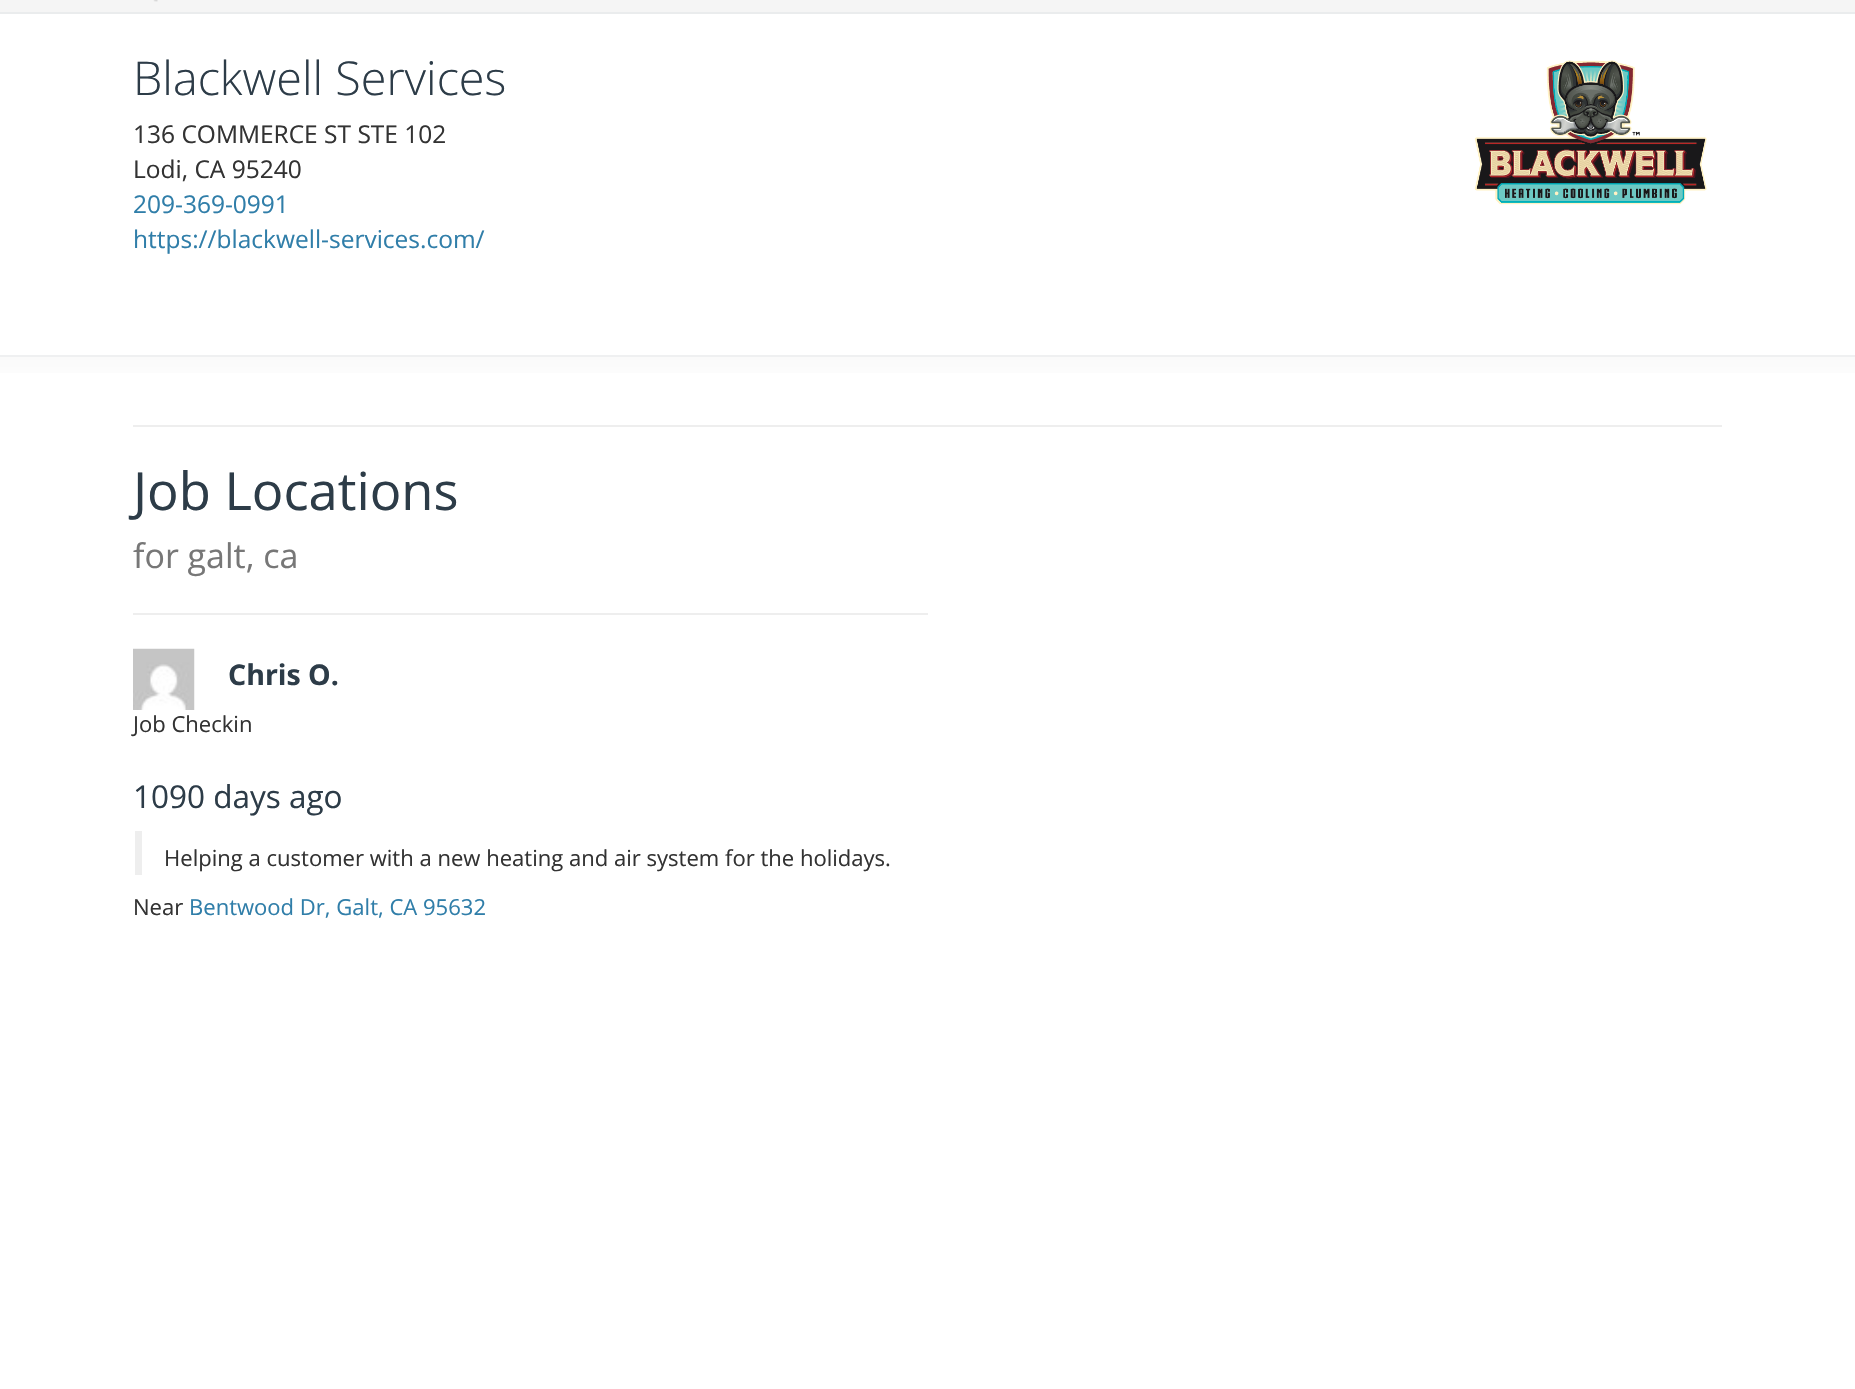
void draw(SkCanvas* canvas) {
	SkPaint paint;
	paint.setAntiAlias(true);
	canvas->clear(0xffffffff);
	paint.setColor(0xffeaeced);
	canvas->drawRect(SkRect::MakeXYWH(0, 12, 1855, 2), paint);
	paint.setColor(0xfff5f5f5);
	canvas->drawRect(SkRect::MakeXYWH(0, 0, 1855, 12), paint);
	canvas->drawImageRect(SkImages::DeferredFromEncodedData(SkData::MakeFromFileName("img1.png")), SkRect::MakeXYWH(153, 0, 5, 2), SkSamplingOptions());
	SkFont f1(fontMgr->matchFamilyStyle("Open Sans", SkFontStyle(300, SkFontStyle::kNormal_Width, SkFontStyle::kUpright_Slant)), 46.75);
	f1.setSubpixel(true);
	paint.setColor(0xff2d3c48);
	canvas->drawString("Blackwell Services", 133, 95, f1, paint);
	SkFont f2(fontMgr->matchFamilyStyle("Open Sans", SkFontStyle::Normal()), 24.5);
	f2.setSubpixel(true);
	paint.setColor(0xff333333);
	canvas->drawString("136 COMMERCE ST STE 102", 133, 143, f2, paint);
	canvas->drawString("Lodi, CA 95240", 133, 178, f2, paint);
	paint.setColor(0xff307ea9);
	canvas->drawString("209-369-0991", 133, 213, f2, paint);
	canvas->drawString("https://blackwell-services.com/", 133, 248, f2, paint);
	canvas->drawImageRect(SkImages::DeferredFromEncodedData(SkData::MakeFromFileName("img2.png")), SkRect::MakeXYWH(1474, 60, 233, 145), SkSamplingOptions());
	{
		const SkColor colors[] = {0xfffafafa, 0xffffffff};
		const float stops[] = {0, 1};
		const SkPoint ends[] = {{928, 357}, {928, 390}};
		paint.setShader(SkGradientShader::MakeLinear(ends, colors, stops, 2, SkTileMode::kClamp));
		paint.setAlpha(255);
	}
	canvas->drawRect(SkRect::MakeXYWH(0, 357, 1855, 16), paint);
	paint.setShader(nullptr);
	paint.setColor(0xffeff0f1);
	canvas->drawRect(SkRect::MakeXYWH(0, 355, 1855, 2), paint);
	paint.setColor(0xffeeeeee);
	canvas->drawRect(SkRect::MakeXYWH(133, 425, 1589, 2), paint);
	SkFont f3(fontMgr->matchFamilyStyle("Open Sans", SkFontStyle::Normal()), 52.5);
	f3.setSubpixel(true);
	paint.setColor(0xff2d3c48);
	canvas->drawString("Job Locations", 133, 510, f3, paint);
	SkFont f4(fontMgr->matchFamilyStyle("Open Sans", SkFontStyle::Normal()), 34);
	f4.setSubpixel(true);
	paint.setColor(0xff777777);
	canvas->drawString("for galt, ca", 133, 568, f4, paint);
	paint.setColor(0xffeeeeee);
	canvas->drawRect(SkRect::MakeXYWH(133, 613, 795, 2), paint);
	canvas->drawImageRect(SkImages::DeferredFromEncodedData(SkData::MakeFromFileName("img3.png")), SkRect::MakeXYWH(133, 648, 62, 62), SkSamplingOptions());
	SkFont f5(fontMgr->matchFamilyStyle("Open Sans", SkFontStyle::Bold()), 28.5);
	f5.setSubpixel(true);
	paint.setColor(0xff2d3c48);
	canvas->drawString("Chris O.", 228, 685, f5, paint);
	SkFont f6(fontMgr->matchFamilyStyle("Open Sans", SkFontStyle::Normal()), 22.05);
	f6.setSubpixel(true);
	paint.setColor(0xff333333);
	canvas->drawString("Job Checkin", 133, 732, f6, paint);
	SkFont f7(fontMgr->matchFamilyStyle("Open Sans", SkFontStyle::Normal()), 31.5);
	f7.setSubpixel(true);
	paint.setColor(0xff2d3c48);
	canvas->drawString("1090 days ago", 133, 808, f7, paint);
	paint.setColor(0xffeeeeee);
	canvas->drawRect(SkRect::MakeXYWH(135, 831, 7, 44), paint);
	paint.setColor(0xff333333);
	canvas->drawString("Helping a customer with a new heating and air system for the holidays.", 164, 866, f6, paint);
	canvas->drawString("Near", 133, 915, f6, paint);
	paint.setColor(0xff307ea9);
	canvas->drawString("Bentwood Dr, Galt, CA 95632", 189, 915, f6, paint);
}
